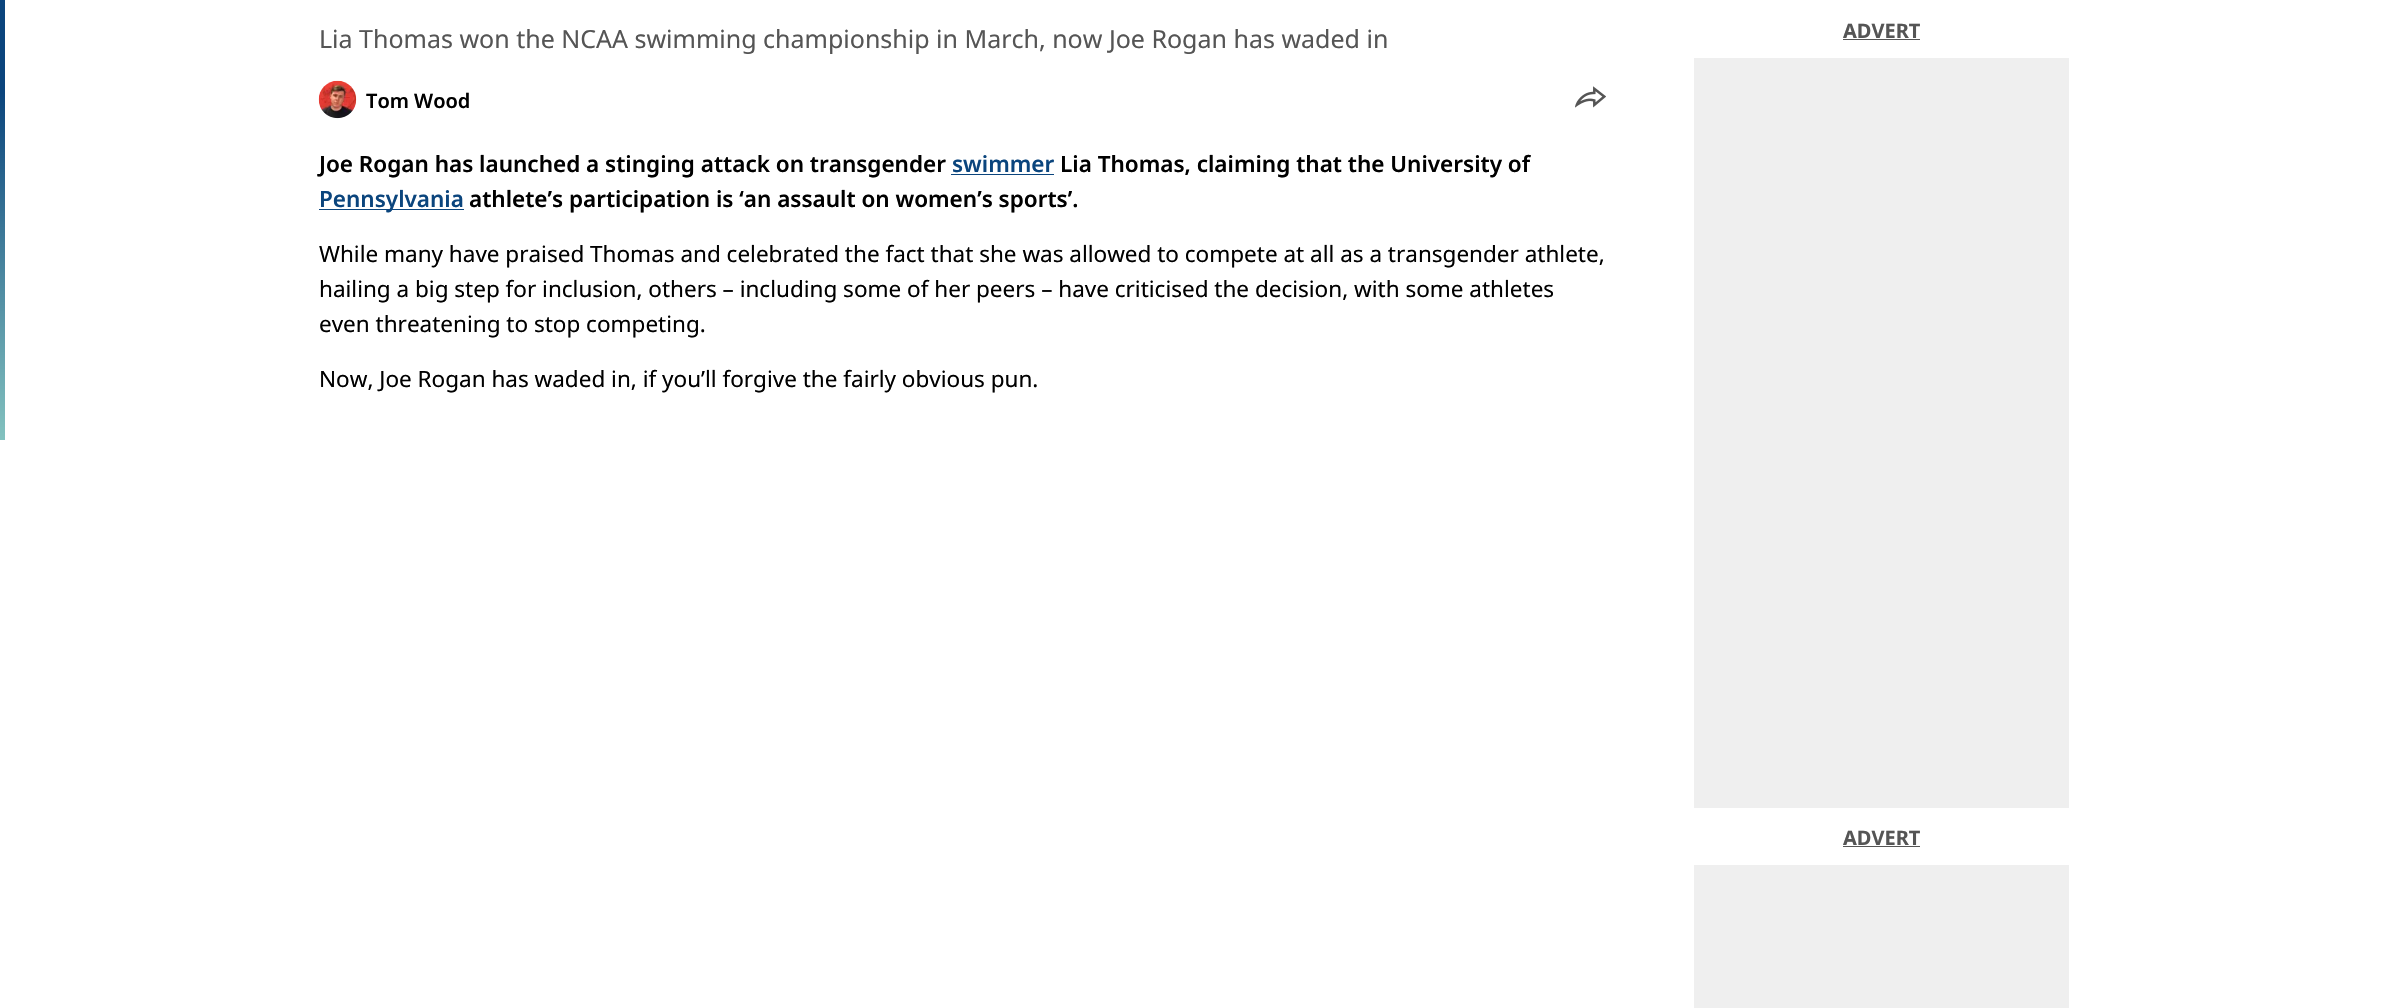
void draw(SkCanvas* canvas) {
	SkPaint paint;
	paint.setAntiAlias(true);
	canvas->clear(0xffffffff);
	{
		const SkColor colors[] = {0xff0b457d, 0xff83c2bf};
		const float stops[] = {0.21, 1};
		const SkPoint ends[] = {{2.5, 0}, {2.5, 440}};
		paint.setShader(SkGradientShader::MakeLinear(ends, colors, stops, 2, SkTileMode::kClamp));
		paint.setAlpha(255);
	}
	canvas->drawRect(SkRect::MakeXYWH(0, 0, 5, 440), paint);
	SkFont f1(fontMgr->matchFamilyStyle("Noto Sans", SkFontStyle::Normal()), 25);
	f1.setSubpixel(true);
	paint.setShader(nullptr);
	paint.setColor(0xff555555);
	canvas->drawString("Lia Thomas won the NCAA swimming championship in March, now Joe Rogan has waded in", 319, 48, f1, paint);
	canvas->drawImageRect(SkImages::DeferredFromEncodedData(SkData::MakeFromFileName("img1.png")), SkRect::MakeXYWH(318, 80, 39, 39), SkSamplingOptions());
	SkFont f2(fontMgr->matchFamilyStyle("Noto Sans", SkFontStyle(600, SkFontStyle::kNormal_Width, SkFontStyle::kUpright_Slant)), 20);
	f2.setSubpixel(true);
	paint.setColor(0xff000000);
	canvas->drawString("Tom Wood", 366, 108, f2, paint);
	canvas->drawImageRect(SkImages::DeferredFromEncodedData(SkData::MakeFromFileName("img2.png")), SkRect::MakeXYWH(1575, 86, 31, 22), SkSamplingOptions());
	SkFont f3(fontMgr->matchFamilyStyle("Noto Sans", SkFontStyle(600, SkFontStyle::kNormal_Width, SkFontStyle::kUpright_Slant)), 22.5);
	f3.setSubpixel(true);
	canvas->drawString("Joe Rogan has launched a stinging attack on transgender", 319, 172, f3, paint);
	paint.setColor(0xff0b457d);
	canvas->drawString("swimmer", 952, 172, f3, paint);
	canvas->drawRect(SkRect::MakeXYWH(951, 174, 103, 1), paint);
	paint.setColor(0xff000000);
	canvas->drawString("Lia Thomas, claiming that the University of", 1060, 172, f3, paint);
	paint.setColor(0xff0b457d);
	canvas->drawRect(SkRect::MakeXYWH(319, 209, 145, 1), paint);
	canvas->drawString("Pennsylvania", 319, 207, f3, paint);
	paint.setColor(0xff000000);
	canvas->drawString("athlete’s participation is ‘an assault on women’s sports’.", 469, 207, f3, paint);
	SkFont f4(fontMgr->matchFamilyStyle("Noto Sans", SkFontStyle::Normal()), 22.5);
	f4.setSubpixel(true);
	canvas->drawString("While many have praised Thomas and celebrated the fact that she was allowed to compete at all as a transgender athlete,", 319, 262, f4, paint);
	canvas->drawString("hailing a big step for inclusion, others – including some of her peers – have criticised the decision, with some athletes", 319, 297, f4, paint);
	canvas->drawString("even threatening to stop competing.", 319, 332, f4, paint);
	canvas->drawString("Now, Joe Rogan has waded in, if you’ll forgive the fairly obvious pun.", 319, 387, f4, paint);
	SkFont f5(fontMgr->matchFamilyStyle("Noto Sans", SkFontStyle::Bold()), 20);
	f5.setSubpixel(true);
	paint.setColor(0xff555555);
	canvas->drawString("ADVERT", 1843, 38, f5, paint);
	canvas->drawRect(SkRect::MakeXYWH(1843, 39, 77, 1), paint);
	paint.setColor(0xffefefef);
	canvas->drawRect(SkRect::MakeXYWH(1694, 58, 375, 750), paint);
	paint.setColor(0xff555555);
	canvas->drawString("ADVERT", 1843, 845, f5, paint);
	canvas->drawRect(SkRect::MakeXYWH(1843, 846, 77, 1), paint);
	paint.setColor(0xffefefef);
	canvas->drawRect(SkRect::MakeXYWH(1694, 865, 375, 143), paint);
}
